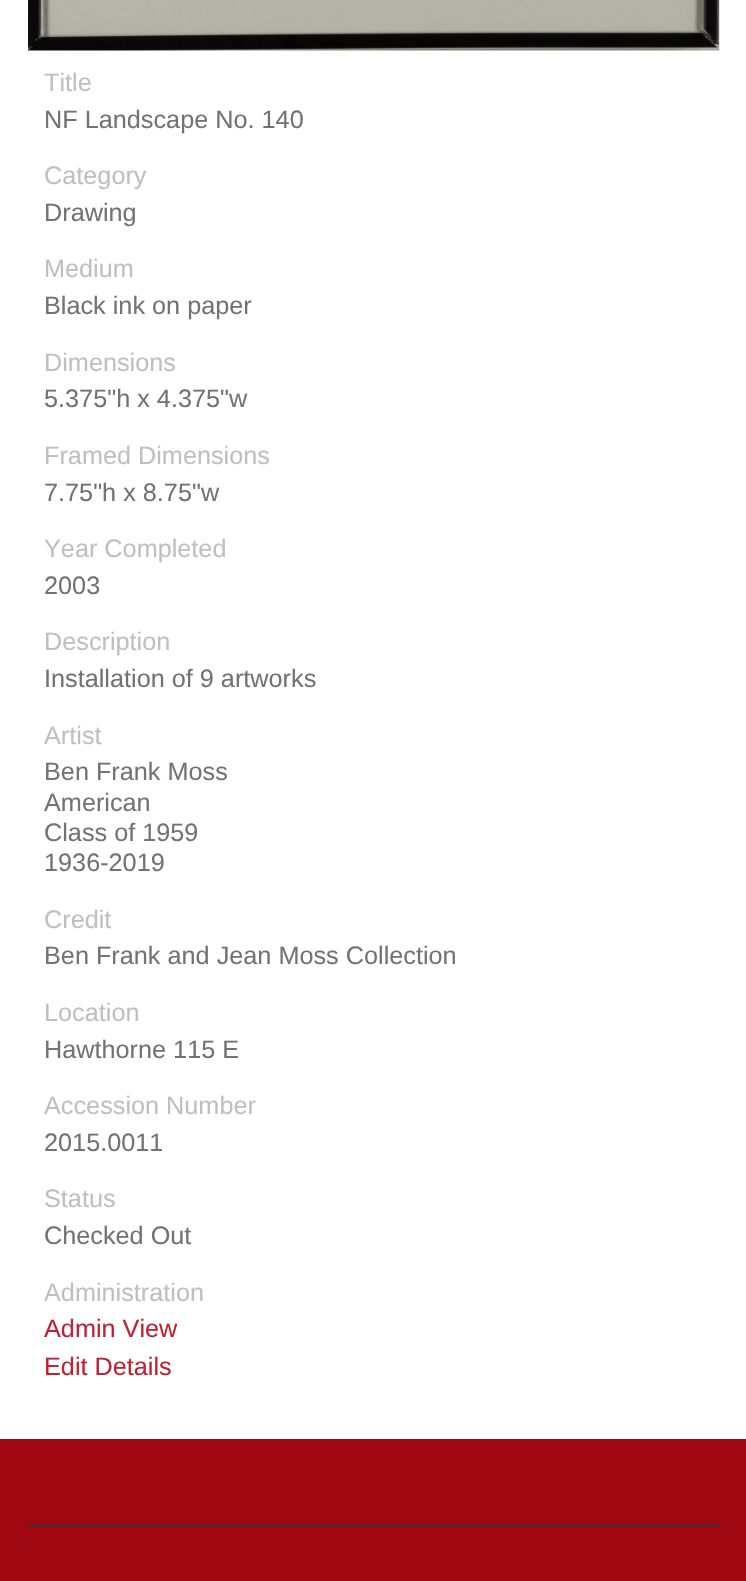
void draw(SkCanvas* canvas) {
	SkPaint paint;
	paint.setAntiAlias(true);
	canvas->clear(0xffffffff);
	canvas->drawImageRect(SkImages::DeferredFromEncodedData(SkData::MakeFromFileName("img1.png")), SkRect::MakeXYWH(28, 0, 692, 51), SkSamplingOptions());
	SkFont f1(fontMgr->matchFamilyStyle("Liberation Sans", SkFontStyle::Normal()), 25.25);
	f1.setSubpixel(true);
	paint.setColor(0xffbfbfbf);
	canvas->drawString("Title", 44, 91, f1, paint);
	paint.setColor(0xff737373);
	canvas->drawString("NF Landscape No. 140", 44, 128, f1, paint);
	paint.setColor(0xffbfbfbf);
	canvas->drawString("Category", 44, 184, f1, paint);
	paint.setColor(0xff737373);
	canvas->drawString("Drawing", 44, 221, f1, paint);
	paint.setColor(0xffbfbfbf);
	canvas->drawString("Medium", 44, 277, f1, paint);
	paint.setColor(0xff737373);
	canvas->drawString("Black ink on paper", 44, 314, f1, paint);
	paint.setColor(0xffbfbfbf);
	canvas->drawString("Dimensions", 44, 371, f1, paint);
	paint.setColor(0xff737373);
	canvas->drawString("5.375\"h x 4.375\"w", 44, 407, f1, paint);
	paint.setColor(0xffbfbfbf);
	canvas->drawString("Framed Dimensions", 44, 464, f1, paint);
	paint.setColor(0xff737373);
	canvas->drawString("7.75\"h x 8.75\"w", 44, 501, f1, paint);
	paint.setColor(0xffbfbfbf);
	canvas->drawString("Year Completed", 44, 557, f1, paint);
	paint.setColor(0xff737373);
	canvas->drawString("2003", 44, 594, f1, paint);
	paint.setColor(0xffbfbfbf);
	canvas->drawString("Description", 44, 650, f1, paint);
	paint.setColor(0xff737373);
	canvas->drawString("Installation of 9 artworks", 44, 687, f1, paint);
	paint.setColor(0xffbfbfbf);
	canvas->drawString("Artist", 44, 744, f1, paint);
	paint.setColor(0xff737373);
	canvas->drawString("Ben Frank Moss", 44, 780, f1, paint);
	canvas->drawString("American", 44, 811, f1, paint);
	canvas->drawString("Class of 1959", 44, 841, f1, paint);
	canvas->drawString("1936-2019", 44, 871, f1, paint);
	paint.setColor(0xffbfbfbf);
	canvas->drawString("Credit", 44, 928, f1, paint);
	paint.setColor(0xff737373);
	canvas->drawString("Ben Frank and Jean Moss Collection", 44, 964, f1, paint);
	paint.setColor(0xffbfbfbf);
	canvas->drawString("Location", 44, 1021, f1, paint);
	paint.setColor(0xff737373);
	canvas->drawString("Hawthorne 115 E", 44, 1058, f1, paint);
	paint.setColor(0xffbfbfbf);
	canvas->drawString("Accession Number", 44, 1114, f1, paint);
	paint.setColor(0xff737373);
	canvas->drawString("2015.0011", 44, 1151, f1, paint);
	paint.setColor(0xffbfbfbf);
	canvas->drawString("Status", 44, 1207, f1, paint);
	paint.setColor(0xff737373);
	canvas->drawString("Checked Out", 44, 1244, f1, paint);
	paint.setColor(0xffbfbfbf);
	canvas->drawString("Administration", 44, 1301, f1, paint);
	paint.setColor(0xffc22033);
	canvas->drawString("Admin View", 44, 1337, f1, paint);
	canvas->drawString("Edit Details", 44, 1375, f1, paint);
	paint.setColor(0xff9f0811);
	canvas->drawRect(SkRect::MakeXYWH(0, 1439, 746, 142), paint);
	paint.setColor(0xff333333);
	canvas->drawRect(SkRect::MakeXYWH(28, 1524, 691, 2), paint);
}
